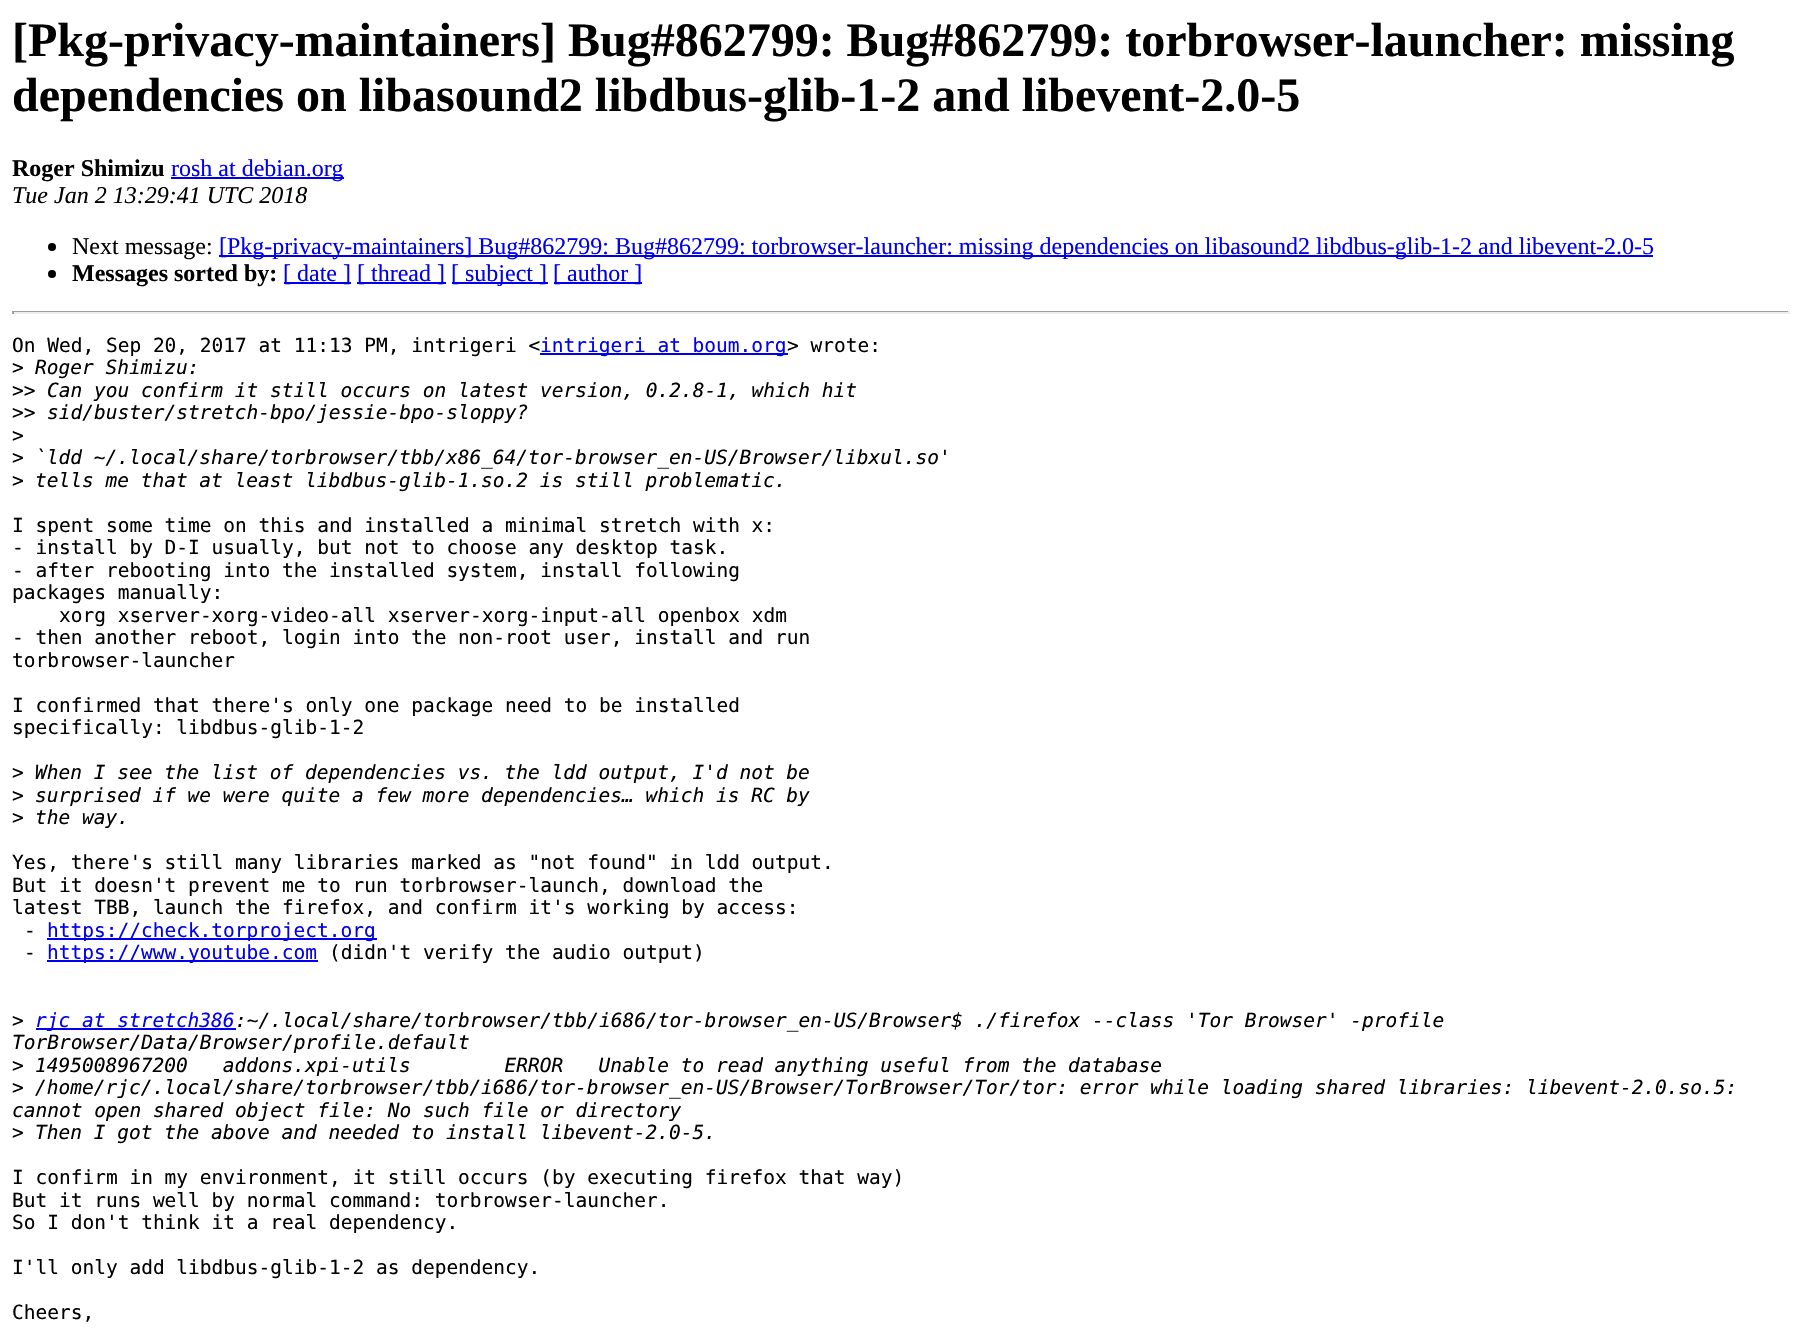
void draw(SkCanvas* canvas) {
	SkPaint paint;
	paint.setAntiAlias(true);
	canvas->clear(0xffffffff);
	SkFont f1(fontMgr->matchFamilyStyle("Liberation Serif", SkFontStyle::Bold()), 48);
	f1.setSubpixel(true);
	paint.setColor(0xff000000);
	canvas->drawString("[Pkg-privacy-maintainers] Bug#862799: Bug#862799: torbrowser-launcher: missing", 12, 56, f1, paint);
	canvas->drawString("dependencies on libasound2 libdbus-glib-1-2 and libevent-2.0-5", 12, 111, f1, paint);
	SkFont f2(fontMgr->matchFamilyStyle("Liberation Serif", SkFontStyle::Bold()), 24);
	f2.setSubpixel(true);
	canvas->drawString("Roger Shimizu", 12, 176, f2, paint);
	paint.setColor(0xff0000ee);
	canvas->drawRect(SkRect::MakeXYWH(171, 177, 173, 2), paint);
	SkFont f3(fontMgr->matchFamilyStyle("Liberation Serif", SkFontStyle::Normal()), 24);
	f3.setSubpixel(true);
	canvas->drawString("rosh at debian.org", 171, 176, f3, paint);
	SkFont f4(fontMgr->matchFamilyStyle("Liberation Serif", SkFontStyle::Italic()), 24);
	f4.setSubpixel(true);
	paint.setColor(0xff000000);
	canvas->drawString("Tue Jan 2 13:29:41 UTC 2018", 12, 203, f4, paint);
	canvas->drawCircle(52, 247, 4, paint);
	canvas->drawString("Next message:", 72, 254, f3, paint);
	paint.setColor(0xff0000ee);
	canvas->drawRect(SkRect::MakeXYWH(219, 255, 1434, 2), paint);
	canvas->drawString("[Pkg-privacy-maintainers] Bug#862799: Bug#862799: torbrowser-launcher: missing dependencies on libasound2 libdbus-glib-1-2 and libevent-2.0-5", 219, 254, f3, paint);
	paint.setColor(0xff000000);
	canvas->drawCircle(52, 274, 4, paint);
	canvas->drawString("Messages sorted by:", 72, 281, f2, paint);
	paint.setColor(0xff0000ee);
	canvas->drawRect(SkRect::MakeXYWH(284, 282, 67, 2), paint);
	canvas->drawString("[ date ]", 283, 281, f3, paint);
	canvas->drawRect(SkRect::MakeXYWH(357, 282, 89, 2), paint);
	canvas->drawString("[ thread ]", 357, 281, f3, paint);
	canvas->drawRect(SkRect::MakeXYWH(452, 282, 96, 2), paint);
	canvas->drawString("[ subject ]", 451, 281, f3, paint);
	canvas->drawRect(SkRect::MakeXYWH(554, 282, 88, 2), paint);
	canvas->drawString("[ author ]", 553, 281, f3, paint);
	paint.setColor(0xff9f9f9f);
	canvas->drawRect(SkRect::MakeXYWH(12, 311, 1778, 1), paint);
	paint.setColor(0xffeeeeee);
	canvas->drawRect(SkRect::MakeXYWH(1788, 311, 2, 3), paint);
	canvas->drawRect(SkRect::MakeXYWH(12, 312, 1778, 2), paint);
	paint.setColor(0xff9f9f9f);
	canvas->drawRect(SkRect::MakeXYWH(12, 311, 2, 3), paint);
	SkFont f5(fontMgr->matchFamilyStyle("DejaVu Sans Mono", SkFontStyle::Normal()), 19.5);
	f5.setSubpixel(true);
	paint.setColor(0xff000000);
	canvas->drawString("On Wed, Sep 20, 2017 at 11:13 PM, intrigeri <", 12, 352, f5, paint);
	paint.setColor(0xff0000ee);
	canvas->drawRect(SkRect::MakeXYWH(540, 353, 248, 2), paint);
	canvas->drawString("intrigeri at boum.org", 540, 352, f5, paint);
	paint.setColor(0xff000000);
	canvas->drawString("> wrote:", 787, 352, f5, paint);
	canvas->drawString(">", 12, 374, f5, paint);
	SkFont f6(fontMgr->matchFamilyStyle("DejaVu Sans Mono", SkFontStyle::Italic()), 19.5);
	f6.setSubpixel(true);
	canvas->drawString("Roger Shimizu:", 35, 374, f6, paint);
	canvas->drawString(">>", 12, 397, f5, paint);
	canvas->drawString("Can you confirm it still occurs on latest version, 0.2.8-1, which hit", 47, 397, f6, paint);
	canvas->drawString(">>", 12, 419, f5, paint);
	canvas->drawString("sid/buster/stretch-bpo/jessie-bpo-sloppy?", 47, 419, f6, paint);
	canvas->drawString(">", 12, 442, f5, paint);
	canvas->drawString(">", 12, 464, f5, paint);
	canvas->drawString("`ldd ~/.local/share/torbrowser/tbb/x86_64/tor-browser_en-US/Browser/libxul.so'", 35, 464, f6, paint);
	canvas->drawString(">", 12, 487, f5, paint);
	canvas->drawString("tells me that at least libdbus-glib-1.so.2 is still problematic.", 35, 487, f6, paint);
	canvas->drawString("I spent some time on this and installed a minimal stretch with x:", 12, 532, f5, paint);
	canvas->drawString("- install by D-I usually, but not to choose any desktop task.", 12, 554, f5, paint);
	canvas->drawString("- after rebooting into the installed system, install following", 12, 577, f5, paint);
	canvas->drawString("packages manually:", 12, 599, f5, paint);
	canvas->drawString("xorg xserver-xorg-video-all xserver-xorg-input-all openbox xdm", 59, 622, f5, paint);
	canvas->drawString("- then another reboot, login into the non-root user, install and run", 12, 644, f5, paint);
	canvas->drawString("torbrowser-launcher", 12, 667, f5, paint);
	canvas->drawString("I confirmed that there's only one package need to be installed", 12, 712, f5, paint);
	canvas->drawString("specifically: libdbus-glib-1-2", 12, 734, f5, paint);
	canvas->drawString(">", 12, 779, f5, paint);
	canvas->drawString("When I see the list of dependencies vs. the ldd output, I'd not be", 35, 779, f6, paint);
	canvas->drawString(">", 12, 802, f5, paint);
	canvas->drawString("surprised if we were quite a few more dependencies… which is RC by", 35, 802, f6, paint);
	canvas->drawString(">", 12, 824, f5, paint);
	canvas->drawString("the way.", 35, 824, f6, paint);
	canvas->drawString("Yes, there's still many libraries marked as \"not found\" in ldd output.", 12, 869, f5, paint);
	canvas->drawString("But it doesn't prevent me to run torbrowser-launch, download the", 12, 892, f5, paint);
	canvas->drawString("latest TBB, launch the firefox, and confirm it's working by access:", 12, 914, f5, paint);
	canvas->drawString("-", 24, 937, f5, paint);
	paint.setColor(0xff0000ee);
	canvas->drawRect(SkRect::MakeXYWH(47, 938, 330, 2), paint);
	canvas->drawString("https://check.torproject.org", 47, 937, f5, paint);
	paint.setColor(0xff000000);
	canvas->drawString("-", 24, 959, f5, paint);
	paint.setColor(0xff0000ee);
	canvas->drawRect(SkRect::MakeXYWH(47, 960, 271, 2), paint);
	canvas->drawString("https://www.youtube.com", 47, 959, f5, paint);
	paint.setColor(0xff000000);
	canvas->drawString("(didn't verify the audio output)", 329, 959, f5, paint);
	canvas->drawString(">", 12, 1027, f5, paint);
	paint.setColor(0xff0000ee);
	canvas->drawRect(SkRect::MakeXYWH(36, 1028, 200, 2), paint);
	canvas->drawString("rjc at stretch386", 35, 1027, f6, paint);
	paint.setColor(0xff000000);
	canvas->drawString(":~/.local/share/torbrowser/tbb/i686/tor-browser_en-US/Browser$ ./firefox --class 'Tor Browser' -profile", 235, 1027, f6, paint);
	canvas->drawString("TorBrowser/Data/Browser/profile.default", 12, 1049, f6, paint);
	canvas->drawString(">", 12, 1072, f5, paint);
	canvas->drawString("1495008967200   addons.xpi-utils        ERROR   Unable to read anything useful from the database", 35, 1072, f6, paint);
	canvas->drawString(">", 12, 1094, f5, paint);
	canvas->drawString("/home/rjc/.local/share/torbrowser/tbb/i686/tor-browser_en-US/Browser/TorBrowser/Tor/tor: error while loading shared libraries: libevent-2.0.so.5:", 35, 1094, f6, paint);
	canvas->drawString("cannot open shared object file: No such file or directory", 12, 1117, f6, paint);
	canvas->drawString(">", 12, 1139, f5, paint);
	canvas->drawString("Then I got the above and needed to install libevent-2.0-5.", 35, 1139, f6, paint);
	canvas->drawString("I confirm in my environment, it still occurs (by executing firefox that way)", 12, 1184, f5, paint);
	canvas->drawString("But it runs well by normal command: torbrowser-launcher.", 12, 1207, f5, paint);
	canvas->drawString("So I don't think it a real dependency.", 12, 1229, f5, paint);
	canvas->drawString("I'll only add libdbus-glib-1-2 as dependency.", 12, 1274, f5, paint);
	canvas->drawString("Cheers,", 12, 1319, f5, paint);
}
